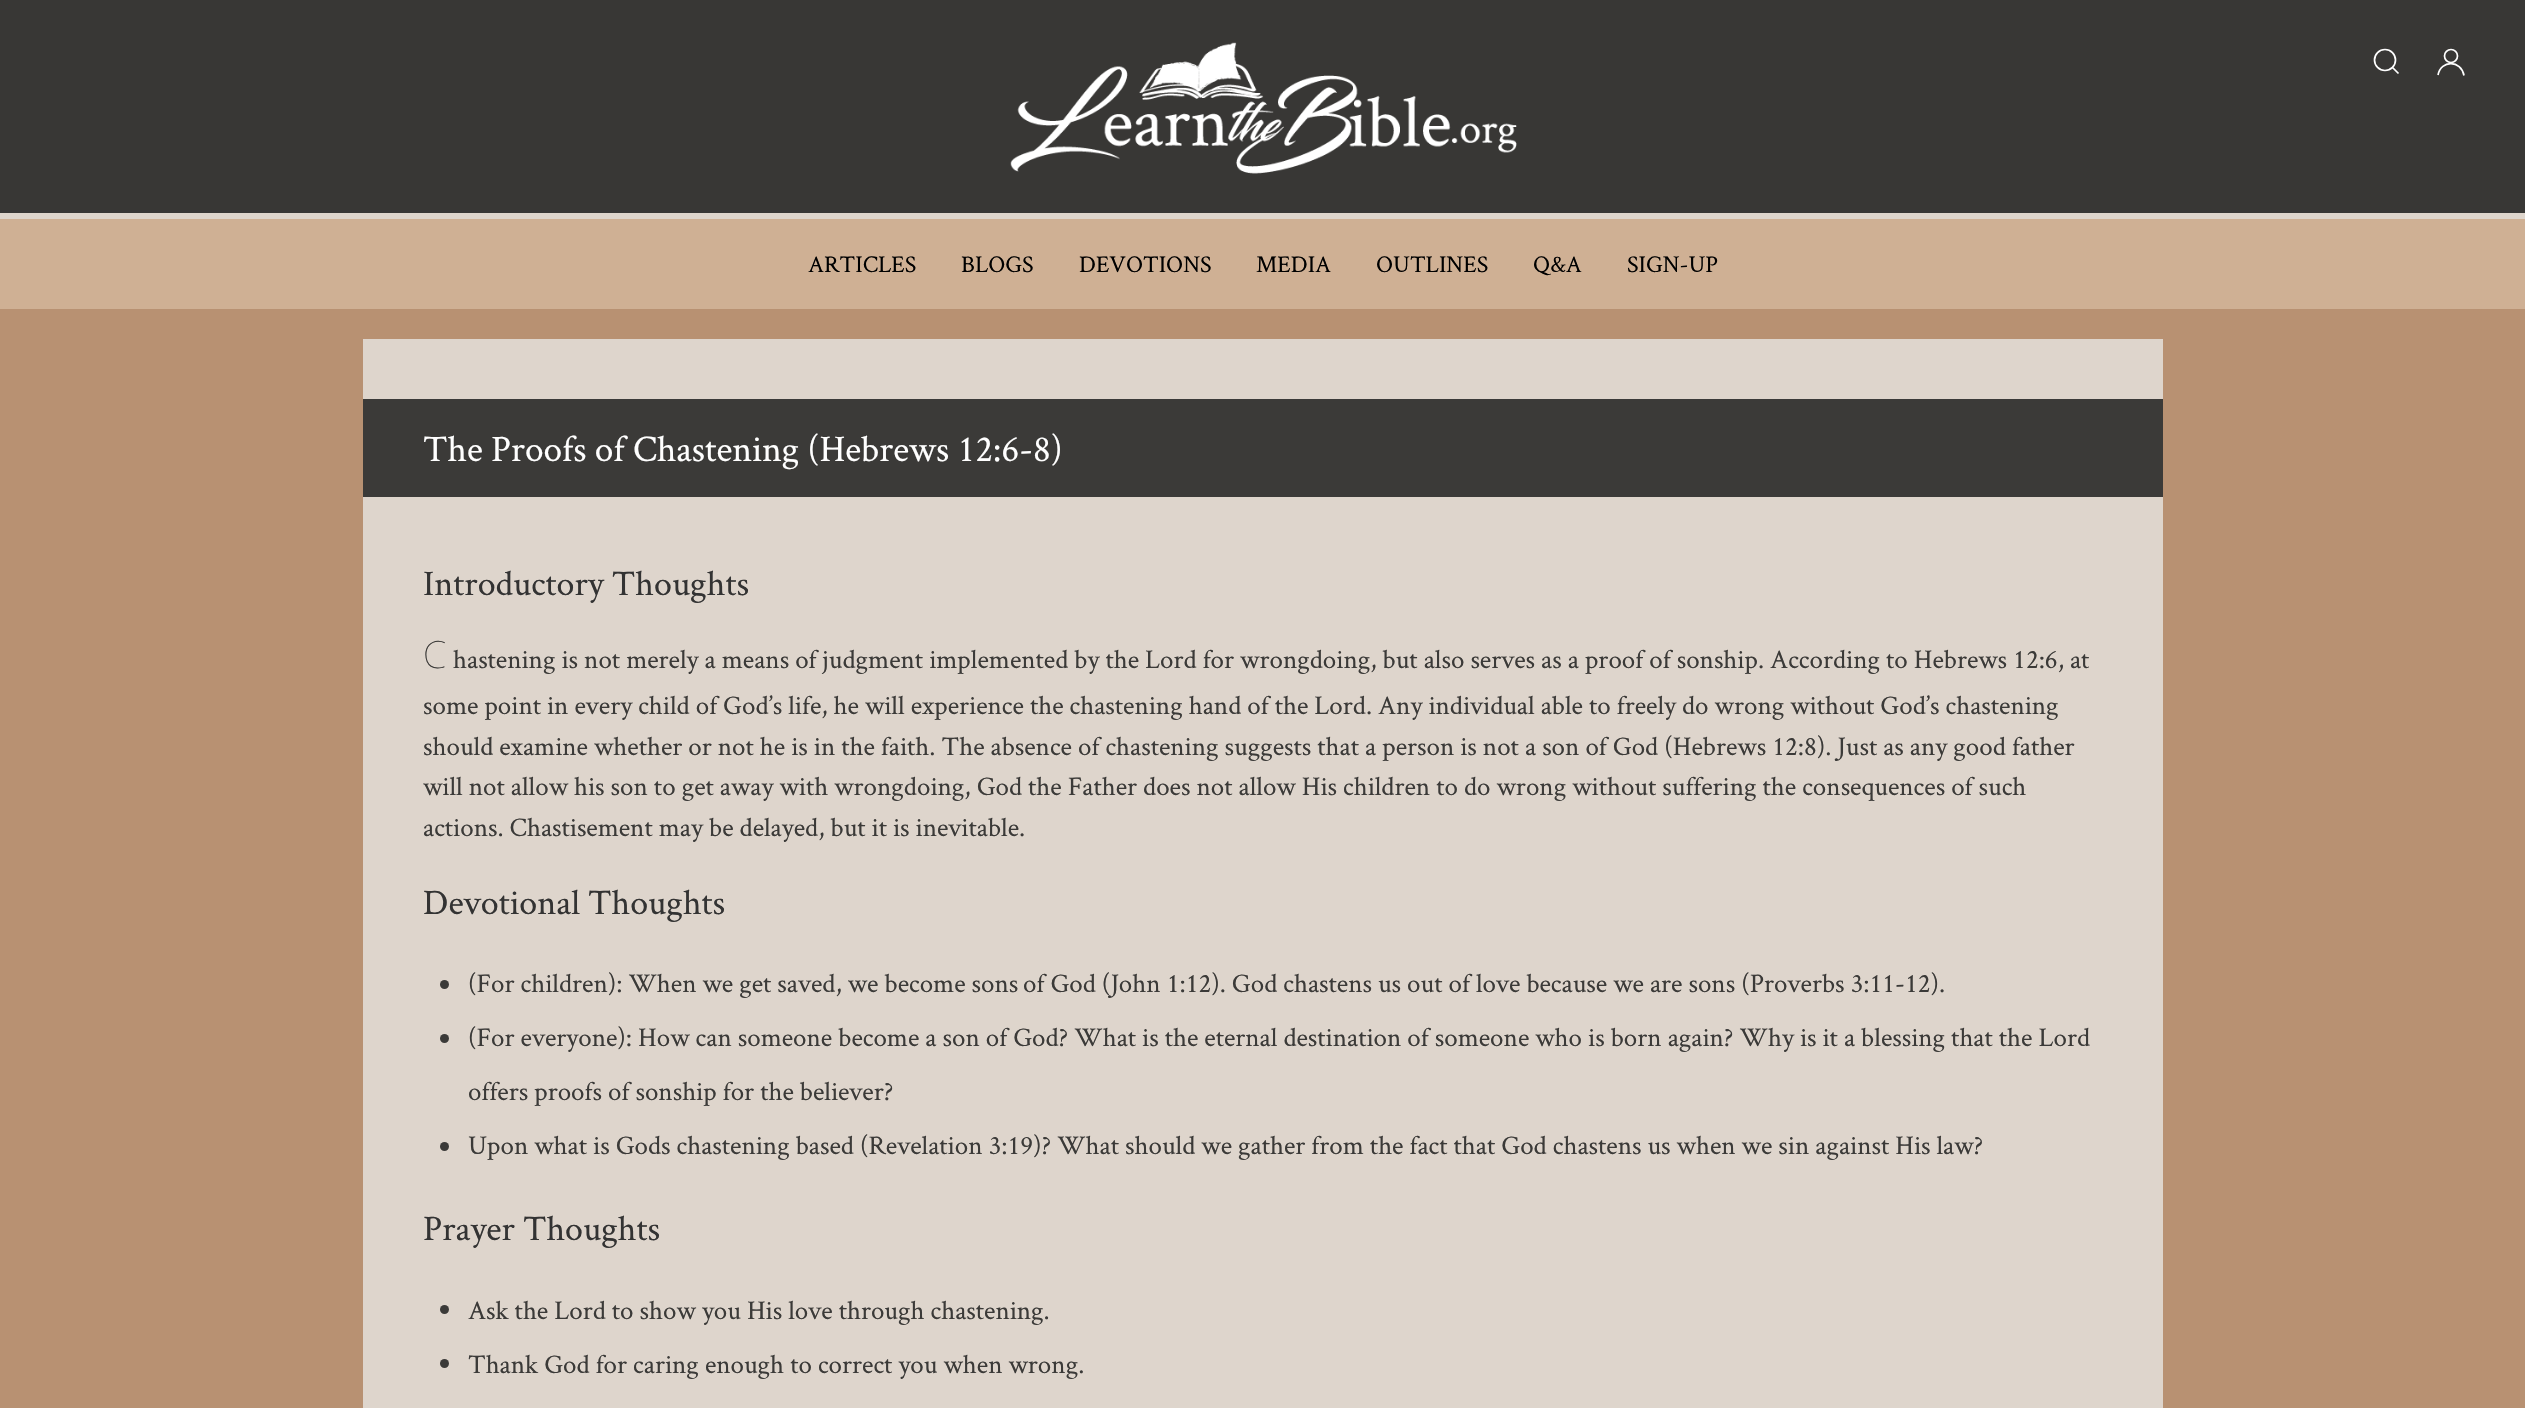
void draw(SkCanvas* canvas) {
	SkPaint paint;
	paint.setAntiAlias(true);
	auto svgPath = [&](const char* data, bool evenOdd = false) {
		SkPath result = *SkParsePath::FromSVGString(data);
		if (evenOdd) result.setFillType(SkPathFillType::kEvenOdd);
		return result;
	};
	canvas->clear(0xffb89172);
	paint.setColor(0xff383735);
	canvas->drawRect(SkRect::MakeXYWH(0, 0, 2525, 213), paint);
	canvas->drawImageRect(SkImages::DeferredFromEncodedData(SkData::MakeFromFileName("img1.png")), SkRect::MakeXYWH(1010, 42, 507, 132), SkSamplingOptions());
	paint.setStroke(true);
	paint.setStrokeWidth(1.7);
	paint.setColor(0xffffffff);
	canvas->drawCircle(2385, 60, 10.5, paint);
	canvas->drawPath(svgPath("M2392.5 67.5L2398.5 73.5Z"), paint);
	canvas->drawCircle(2451, 56, 6.5, paint);
	canvas->drawPath(svgPath("M2438 75C2441 59.5 2461 60 2464 75.5"), paint);
	paint.setStroke(false);
	paint.setColor(0xffcfb094);
	canvas->drawRect(SkRect::MakeXYWH(0, 219, 2525, 90), paint);
	paint.setColor(0xffded5cc);
	canvas->drawRect(SkRect::MakeXYWH(0, 213, 2525, 6), paint);
	SkFont f1(fontMgr->matchFamilyStyle("Crimson Text", SkFontStyle::Normal()), 24);
	f1.setSubpixel(true);
	paint.setColor(0xff000000);
	canvas->drawString("ARTICLES", 808, 272, f1, paint);
	canvas->drawString("BLOGS", 961, 272, f1, paint);
	canvas->drawString("DEVOTIONS", 1079, 272, f1, paint);
	canvas->drawString("MEDIA", 1256, 272, f1, paint);
	canvas->drawString("OUTLINES", 1376, 272, f1, paint);
	canvas->drawString("Q&A", 1533, 272, f1, paint);
	canvas->drawString("SIGN-UP", 1627, 272, f1, paint);
	paint.setColor(0xffded5cc);
	canvas->drawRect(SkRect::MakeXYWH(363, 339, 1800, 1069), paint);
	paint.setColor(0xff3b3a38);
	canvas->drawRect(SkRect::MakeXYWH(363, 399, 1800, 98), paint);
	SkFont f2(fontMgr->matchFamilyStyle("Crimson Text", SkFontStyle::Normal()), 37.5);
	f2.setSubpixel(true);
	paint.setColor(0xffffffff);
	canvas->drawString("The Proofs of Chastening (Hebrews 12:6-8)", 423, 461, f2, paint);
	SkFont f3(fontMgr->matchFamilyStyle("Crimson Text", SkFontStyle::Normal()), 36);
	f3.setSubpixel(true);
	paint.setColor(0xff333333);
	canvas->drawString("Introductory Thoughts", 423, 595, f3, paint);
	SkFont f4(fontMgr->matchFamilyStyle("Noto Sans", SkFontStyle(100, SkFontStyle::kNormal_Width, SkFontStyle::kUpright_Slant)), 37.5);
	f4.setSubpixel(true);
	paint.setColor(0xff3b3a38);
	canvas->drawString("C", 423, 668, f4, paint);
	SkFont f5(fontMgr->matchFamilyStyle("Crimson Text", SkFontStyle::Normal()), 27);
	f5.setSubpixel(true);
	canvas->drawString("hastening is not merely a means of judgment implemented by the Lord for wrongdoing, but also serves as a proof of sonship. According to Hebrews 12:6, at", 453, 668, f5, paint);
	canvas->drawString("some point in every child of God’s life, he will experience the chastening hand of the Lord. Any individual able to freely do wrong without God’s chastening", 423, 714, f5, paint);
	canvas->drawString("should examine whether or not he is in the faith. The absence of chastening suggests that a person is not a son of God (Hebrews 12:8). Just as any good father", 423, 755, f5, paint);
	canvas->drawString("will not allow his son to get away with wrongdoing, God the Father does not allow His children to do wrong without suffering the consequences of such", 423, 795, f5, paint);
	canvas->drawString("actions. Chastisement may be delayed, but it is inevitable.", 423, 836, f5, paint);
	paint.setColor(0xff333333);
	canvas->drawString("Devotional Thoughts", 423, 914, f3, paint);
	paint.setColor(0xff3b3a38);
	canvas->drawCircle(444.5, 984.5, 4.5, paint);
	canvas->drawString("(For children): When we get saved, we become sons", 468, 992, f5, paint);
	canvas->drawString("of God (John 1:12). God chastens us out of love because we are sons (Proverbs 3:11-12).", 1023, 992, f5, paint);
	canvas->drawCircle(444.5, 1038.5, 4.5, paint);
	canvas->drawString("(For everyone): How can someone become a son of God? What is the eternal destination of someone who is born again? Why is it a blessing that the Lord", 468, 1046, f5, paint);
	canvas->drawString("offers proofs of sonship for the believer?", 468, 1100, f5, paint);
	canvas->drawCircle(444.5, 1146.5, 4.5, paint);
	canvas->drawString("Upon what is Gods chastening based (Revelation 3:19)? What should we gather from the fact that God chastens us when we sin against His law?", 468, 1154, f5, paint);
	paint.setColor(0xff333333);
	canvas->drawString("Prayer Thoughts", 423, 1240, f3, paint);
	paint.setColor(0xff3b3a38);
	canvas->drawCircle(444.5, 1309.5, 4.5, paint);
	canvas->drawString("Ask the Lord to show you His love through chastening.", 468, 1319, f5, paint);
	canvas->drawCircle(444.5, 1363.5, 4.5, paint);
	canvas->drawString("Thank God for caring enough to correct you when wrong.", 468, 1373, f5, paint);
}
